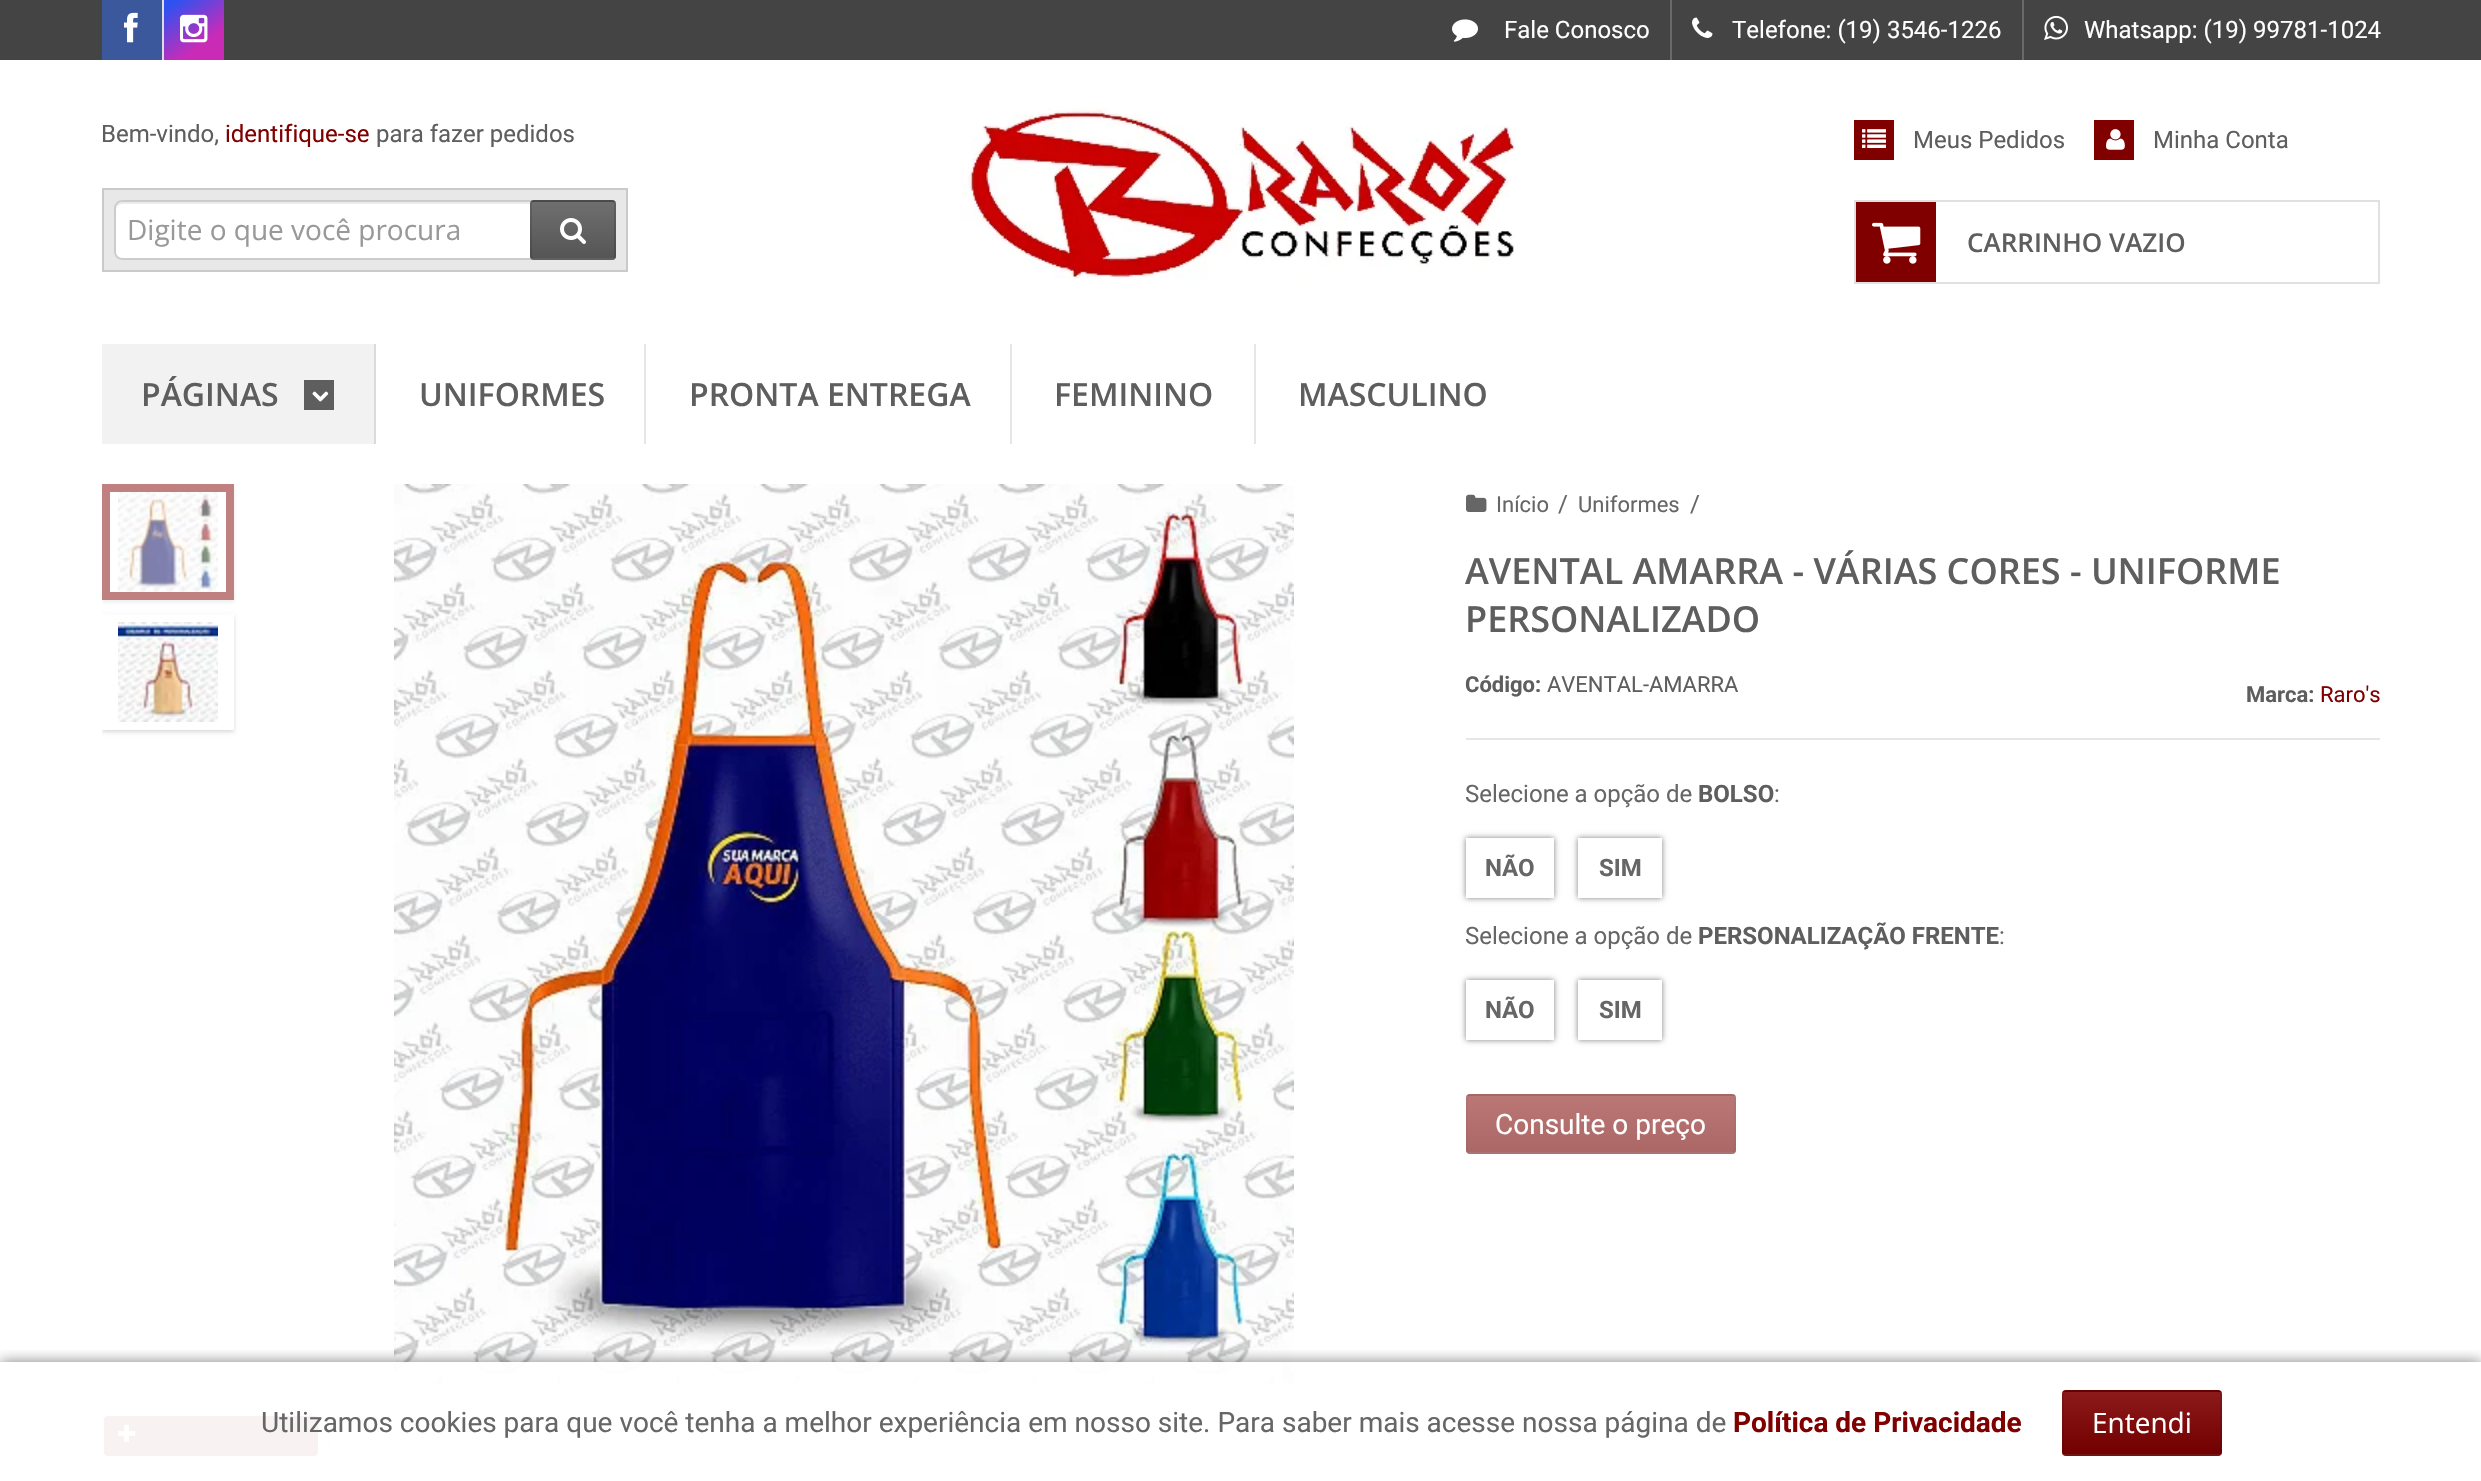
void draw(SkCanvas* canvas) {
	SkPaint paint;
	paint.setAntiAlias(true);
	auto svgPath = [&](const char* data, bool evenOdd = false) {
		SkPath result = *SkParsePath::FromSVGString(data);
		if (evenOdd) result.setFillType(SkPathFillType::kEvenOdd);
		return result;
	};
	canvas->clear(0xffffffff);
	paint.setColor(0xff444444);
	canvas->drawRect(SkRect::MakeXYWH(0, 0, 2481, 60), paint);
	paint.setColor(0xff3a589b);
	canvas->drawRect(SkRect::MakeXYWH(102, 0, 60, 60), paint);
	canvas->drawImageRect(SkImages::DeferredFromEncodedData(SkData::MakeFromFileName("img1.png")), SkRect::MakeXYWH(124, 12, 14, 31), SkSamplingOptions());
	paint.setColor(0xffdddddd);
	canvas->drawRect(SkRect::MakeXYWH(162, 0, 2, 60), paint);
	{
		const SkColor colors[] = {0xff3051f1, 0xffc92bb7};
		const float stops[] = {0.1, 0.7};
		const SkPoint ends[] = {{170, -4.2}, {218, 64}};
		paint.setShader(SkGradientShader::MakeLinear(ends, colors, stops, 2, SkTileMode::kClamp));
		paint.setAlpha(255);
	}
	canvas->drawRect(SkRect::MakeXYWH(164, 0, 60, 60), paint);
	canvas->drawImageRect(SkImages::DeferredFromEncodedData(SkData::MakeFromFileName("img2.png")), SkRect::MakeXYWH(180, 14, 28, 29), SkSamplingOptions());
	canvas->drawImageRect(SkImages::DeferredFromEncodedData(SkData::MakeFromFileName("img3.png")), SkRect::MakeXYWH(1452, 19, 26, 23), SkSamplingOptions());
	SkFont f1(fontMgr->matchFamilyStyle("Roboto", SkFontStyle::Normal()), 24);
	f1.setSubpixel(true);
	paint.setShader(nullptr);
	paint.setColor(0xffffffff);
	canvas->drawString("Fale Conosco", 1504, 38, f1, paint);
	paint.setColor(0xff696969);
	canvas->drawRect(SkRect::MakeXYWH(1670, 0, 2, 60), paint);
	canvas->drawImageRect(SkImages::DeferredFromEncodedData(SkData::MakeFromFileName("img4.png")), SkRect::MakeXYWH(1692, 17, 21, 21), SkSamplingOptions());
	paint.setColor(0xffffffff);
	canvas->drawString("Telefone: (19) 3546-1226", 1732, 38, f1, paint);
	paint.setColor(0xff696969);
	canvas->drawRect(SkRect::MakeXYWH(2022, 0, 2, 60), paint);
	canvas->drawImageRect(SkImages::DeferredFromEncodedData(SkData::MakeFromFileName("img5.png")), SkRect::MakeXYWH(2044, 15, 24, 25), SkSamplingOptions());
	paint.setColor(0xffffffff);
	canvas->drawString("Whatsapp: (19) 99781-1024", 2084, 38, f1, paint);
	paint.setColor(0xff5e5e5e);
	canvas->drawString("Bem-vindo,", 101, 142, f1, paint);
	paint.setColor(0xff800000);
	canvas->drawString("identifique-se", 225, 142, f1, paint);
	paint.setColor(0xff5e5e5e);
	canvas->drawString("para fazer pedidos", 376, 142, f1, paint);
	paint.setColor(0xffe8e8e8);
	canvas->drawRect(SkRect::MakeXYWH(103, 189, 524, 82), paint);
	paint.setStroke(true);
	paint.setStrokeWidth(2);
	paint.setColor(0xffcacaca);
	canvas->drawRect(SkRect::MakeXYWH(103, 189, 524, 82), paint);
	paint.setStroke(false);
	paint.setColor(0xffffffff);
	canvas->drawRoundRect(SkRect::MakeXYWH(114, 200, 498, 60), 8, 8, paint);
	paint.setColor(0xffececec);
	canvas->drawPath(svgPath("M122 204H604C607 204 610 207 610 210C610 206 609 202 604 202H122C117 202 116 206 116 210C116 207 119 204 122 204Z"), paint);
	paint.setStroke(true);
	paint.setColor(0xffcccccc);
	canvas->drawRoundRect(SkRect::MakeXYWH(115, 201, 496, 58), 7, 7, paint);
	SkFont f2(fontMgr->matchFamilyStyle("Open Sans", SkFontStyle::Normal()), 28);
	f2.setSubpixel(true);
	paint.setStroke(false);
	paint.setColor(0xff999999);
	canvas->drawString("Digite o que você procura", 127, 240, f2, paint);
	paint.setColor(0xff5e5e5e);
	canvas->drawRoundRect(SkRect::MakeXYWH(530, 200, 86, 60), 4, 4, paint);
	canvas->save();
	canvas->clipPath(svgPath("M534 200H612C614 200 616 202 616 204V256C616 258 614 260 612 260H534C532 260 530 258 530 256V204C530 202 532 200 534 200Z"), true);
	{
		const SkColor colors[] = {0x1affffff, 0x1a000000};
		const float stops[] = {0, 1};
		const SkPoint ends[] = {{573, 146}, {573, 202}};
		paint.setShader(SkGradientShader::MakeLinear(ends, colors, stops, 2, SkTileMode::kClamp));
		paint.setAlpha(255);
	}
	canvas->drawRect(SkRect::MakeXYWH(530, 200, 86, 2), paint);
	canvas->restore();
	{
		const SkColor colors[] = {0x1affffff, 0x1a000000};
		const float stops[] = {0, 1};
		const SkPoint ends[] = {{573, 202}, {573, 258}};
		paint.setShader(SkGradientShader::MakeLinear(ends, colors, stops, 2, SkTileMode::kClamp));
		paint.setAlpha(255);
	}
	canvas->drawRect(SkRect::MakeXYWH(530, 202, 86, 56), paint);
	canvas->save();
	canvas->clipPath(svgPath("M534 200H612C614 200 616 202 616 204V256C616 258 614 260 612 260H534C532 260 530 258 530 256V204C530 202 532 200 534 200Z"), true);
	{
		const SkColor colors[] = {0x1affffff, 0x1a000000};
		const float stops[] = {0, 1};
		const SkPoint ends[] = {{573, 258}, {573, 314}};
		paint.setShader(SkGradientShader::MakeLinear(ends, colors, stops, 2, SkTileMode::kClamp));
		paint.setAlpha(255);
	}
	canvas->drawRect(SkRect::MakeXYWH(530, 258, 86, 2), paint);
	canvas->restore();
	paint.setStroke(true);
	paint.setShader(nullptr);
	paint.setColor(0x21000000);
	canvas->drawRoundRect(SkRect::MakeXYWH(531, 201, 84, 58), 3, 3, paint);
	canvas->drawImageRect(SkImages::DeferredFromEncodedData(SkData::MakeFromFileName("img6.png")), SkRect::MakeXYWH(560, 218, 26, 26), SkSamplingOptions());
	canvas->drawImageRect(SkImages::DeferredFromEncodedData(SkData::MakeFromFileName("img7.png")), SkRect::MakeXYWH(961, 108, 555, 171), SkSamplingOptions());
	paint.setStroke(false);
	paint.setColor(0xff800000);
	canvas->drawRect(SkRect::MakeXYWH(1854, 120, 40, 40), paint);
	canvas->drawImageRect(SkImages::DeferredFromEncodedData(SkData::MakeFromFileName("img8.png")), SkRect::MakeXYWH(1862, 129, 24, 19), SkSamplingOptions());
	paint.setColor(0xff5e5e5e);
	canvas->drawString("Meus Pedidos", 1913, 148, f1, paint);
	paint.setColor(0xff800000);
	canvas->drawRect(SkRect::MakeXYWH(2094, 120, 40, 40), paint);
	canvas->drawImageRect(SkImages::DeferredFromEncodedData(SkData::MakeFromFileName("img9.png")), SkRect::MakeXYWH(2106, 129, 19, 21), SkSamplingOptions());
	paint.setColor(0xff5e5e5e);
	canvas->drawString("Minha Conta", 2153, 148, f1, paint);
	paint.setStroke(true);
	paint.setColor(0xffe0e0e0);
	canvas->drawRect(SkRect::MakeXYWH(1855, 201, 524, 82), paint);
	paint.setStroke(false);
	paint.setColor(0xff800000);
	canvas->drawRect(SkRect::MakeXYWH(1856, 202, 80, 80), paint);
	canvas->drawImageRect(SkImages::DeferredFromEncodedData(SkData::MakeFromFileName("img10.png")), SkRect::MakeXYWH(1872, 222, 49, 42), SkSamplingOptions());
	SkFont f3(fontMgr->matchFamilyStyle("Open Sans", SkFontStyle(600, SkFontStyle::kNormal_Width, SkFontStyle::kUpright_Slant)), 26);
	f3.setSubpixel(true);
	paint.setColor(0xff5e5e5e);
	canvas->drawString("CARRINHO VAZIO", 1967, 252, f3, paint);
	paint.setColor(0xfff2f2f2);
	canvas->drawRect(SkRect::MakeXYWH(102, 344, 272, 100), paint);
	paint.setColor(0xffdadada);
	canvas->drawRect(SkRect::MakeXYWH(374, 344, 2, 100), paint);
	SkFont f4(fontMgr->matchFamilyStyle("Open Sans", SkFontStyle(600, SkFontStyle::kNormal_Width, SkFontStyle::kUpright_Slant)), 32);
	f4.setSubpixel(true);
	paint.setColor(0xff5e5e5e);
	canvas->drawString("PÁGINAS", 141, 406, f4, paint);
	canvas->drawRect(SkRect::MakeXYWH(304, 380, 30, 30), paint);
	canvas->drawImageRect(SkImages::DeferredFromEncodedData(SkData::MakeFromFileName("img11.png")), SkRect::MakeXYWH(312, 391, 17, 11), SkSamplingOptions());
	paint.setColor(0xffe6e6e6);
	canvas->drawRect(SkRect::MakeXYWH(644, 344, 2, 100), paint);
	paint.setColor(0xff5e5e5e);
	canvas->drawString("UNIFORMES", 419, 406, f4, paint);
	paint.setColor(0xffe6e6e6);
	canvas->drawRect(SkRect::MakeXYWH(1010, 344, 2, 100), paint);
	paint.setColor(0xff5e5e5e);
	canvas->drawString("PRONTA ENTREGA", 689, 406, f4, paint);
	paint.setColor(0xffe6e6e6);
	canvas->drawRect(SkRect::MakeXYWH(1254, 344, 2, 100), paint);
	paint.setColor(0xff5e5e5e);
	canvas->drawString("FEMININO", 1054, 406, f4, paint);
	canvas->drawString("MASCULINO", 1298, 406, f4, paint);
	canvas->save();
	canvas->clipRect(SkRect::MakeXYWH(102, 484, 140, 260));
	canvas->clipPath(svgPath("M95 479H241V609H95ZM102 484H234V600H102Z", true), true);
	paint.setColor(0x26808080);
	paint.setMaskFilter(SkMaskFilter::MakeBlur(kNormal_SkBlurStyle, 2));
	canvas->drawRect(SkRect::MakeXYWH(102, 486, 132, 116), paint);
	paint.setMaskFilter(nullptr);
	canvas->restore();
	paint.setStroke(true);
	paint.setStrokeWidth(8);
	paint.setColor(0xffc08080);
	canvas->drawRect(SkRect::MakeXYWH(106, 488, 124, 108), paint);
	canvas->drawImageRect(SkImages::DeferredFromEncodedData(SkData::MakeFromFileName("img12.png")), SkRect::MakeXYWH(118, 492, 100, 100), SkSamplingOptions());
	canvas->save();
	canvas->clipRect(SkRect::MakeXYWH(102, 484, 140, 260));
	canvas->clipPath(svgPath("M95 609H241V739H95ZM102 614H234V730H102Z", true), true);
	paint.setStroke(false);
	paint.setColor(0x26000000);
	paint.setMaskFilter(SkMaskFilter::MakeBlur(kNormal_SkBlurStyle, 2));
	canvas->drawRect(SkRect::MakeXYWH(102, 616, 132, 116), paint);
	paint.setMaskFilter(nullptr);
	canvas->restore();
	canvas->drawImageRect(SkImages::DeferredFromEncodedData(SkData::MakeFromFileName("img13.png")), SkRect::MakeXYWH(118, 622, 100, 100), SkSamplingOptions());
	canvas->drawImageRect(SkImages::DeferredFromEncodedData(SkData::MakeFromFileName("img14.png")), SkRect::MakeXYWH(394, 484, 900, 900), SkSamplingOptions());
	paint.setColor(0xffdddddd);
	canvas->drawRect(SkRect::MakeXYWH(102, 1414, 2, 42), paint);
	paint.setColor(0xff800000);
	canvas->drawRoundRect(SkRect::MakeXYWH(104, 1416, 214, 40), 4, 4, paint);
	canvas->drawImageRect(SkImages::DeferredFromEncodedData(SkData::MakeFromFileName("img15.png")), SkRect::MakeXYWH(118, 1424, 18, 18), SkSamplingOptions());
	paint.setColor(0xffdddddd);
	canvas->drawRect(SkRect::MakeXYWH(328, 1414, 2, 40), paint);
	canvas->drawImageRect(SkImages::DeferredFromEncodedData(SkData::MakeFromFileName("img16.png")), SkRect::MakeXYWH(1466, 494, 21, 18), SkSamplingOptions());
	SkFont f5(fontMgr->matchFamilyStyle("Roboto", SkFontStyle::Normal()), 22);
	f5.setSubpixel(true);
	paint.setColor(0xff666666);
	canvas->drawString("Início", 1496, 512, f5, paint);
	canvas->drawString("/", 1558, 512, f1, paint);
	canvas->drawString("Uniformes", 1578, 512, f5, paint);
	canvas->drawString("/", 1690, 512, f1, paint);
	SkFont f6(fontMgr->matchFamilyStyle("Open Sans", SkFontStyle(600, SkFontStyle::kNormal_Width, SkFontStyle::kUpright_Slant)), 36);
	f6.setSubpixel(true);
	paint.setColor(0xff5e5e5e);
	canvas->drawString("AVENTAL AMARRA - VÁRIAS CORES - UNIFORME", 1465, 584, f6, paint);
	canvas->drawString("PERSONALIZADO", 1465, 632, f6, paint);
	paint.setColor(0xffe6e6e6);
	canvas->drawRect(SkRect::MakeXYWH(1466, 738, 914, 2), paint);
	SkFont f7(fontMgr->matchFamilyStyle("Roboto", SkFontStyle::Bold()), 22);
	f7.setSubpixel(true);
	paint.setColor(0xff5e5e5e);
	canvas->drawString("Código:", 1465, 692, f7, paint);
	canvas->drawString("AVENTAL-AMARRA", 1547, 692, f5, paint);
	canvas->drawString("Marca:", 2246, 702, f7, paint);
	paint.setColor(0xff800000);
	canvas->drawString("Raro's", 2320, 702, f5, paint);
	paint.setColor(0xff666666);
	canvas->drawString("Selecione a opção de", 1465, 802, f1, paint);
	SkFont f8(fontMgr->matchFamilyStyle("Roboto", SkFontStyle::Bold()), 24);
	f8.setSubpixel(true);
	paint.setColor(0xff5e5e5e);
	canvas->drawString("BOLSO", 1698, 802, f8, paint);
	paint.setColor(0xff666666);
	canvas->drawString(":", 1774, 802, f1, paint);
	canvas->save();
	canvas->clipPath(svgPath("M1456 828H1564V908H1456ZM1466 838H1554V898H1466Z", true), true);
	paint.setColor(0x80000000);
	paint.setMaskFilter(SkMaskFilter::MakeBlur(kNormal_SkBlurStyle, 3));
	canvas->drawRect(SkRect::MakeXYWH(1466, 838, 88, 60), paint);
	paint.setMaskFilter(nullptr);
	canvas->restore();
	paint.setColor(0xff666666);
	canvas->drawString("NÃO", 1485, 876, f8, paint);
	canvas->save();
	canvas->clipPath(svgPath("M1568 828H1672V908H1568ZM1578 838H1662V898H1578Z", true), true);
	paint.setColor(0x80000000);
	paint.setMaskFilter(SkMaskFilter::MakeBlur(kNormal_SkBlurStyle, 3));
	canvas->drawRect(SkRect::MakeXYWH(1578, 838, 84, 60), paint);
	paint.setMaskFilter(nullptr);
	canvas->restore();
	paint.setColor(0xff666666);
	canvas->drawString("SIM", 1599, 876, f8, paint);
	canvas->drawString("Selecione a opção de", 1465, 944, f1, paint);
	paint.setColor(0xff5e5e5e);
	canvas->drawString("PERSONALIZAÇÃO FRENTE", 1698, 944, f8, paint);
	paint.setColor(0xff666666);
	canvas->drawString(":", 1999, 944, f1, paint);
	canvas->save();
	canvas->clipPath(svgPath("M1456 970H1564V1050H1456ZM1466 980H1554V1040H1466Z", true), true);
	paint.setColor(0x80000000);
	paint.setMaskFilter(SkMaskFilter::MakeBlur(kNormal_SkBlurStyle, 3));
	canvas->drawRect(SkRect::MakeXYWH(1466, 980, 88, 60), paint);
	paint.setMaskFilter(nullptr);
	canvas->restore();
	paint.setColor(0xff666666);
	canvas->drawString("NÃO", 1485, 1018, f8, paint);
	canvas->save();
	canvas->clipPath(svgPath("M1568 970H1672V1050H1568ZM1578 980H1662V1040H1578Z", true), true);
	paint.setColor(0x80000000);
	paint.setMaskFilter(SkMaskFilter::MakeBlur(kNormal_SkBlurStyle, 3));
	canvas->drawRect(SkRect::MakeXYWH(1578, 980, 84, 60), paint);
	paint.setMaskFilter(nullptr);
	canvas->restore();
	paint.setColor(0xff666666);
	canvas->drawString("SIM", 1599, 1018, f8, paint);
	paint.setColor(0xffb36666);
	canvas->drawRoundRect(SkRect::MakeXYWH(1466, 1094, 270, 60), 4, 4, paint);
	canvas->save();
	canvas->clipPath(svgPath("M1470 1094H1732C1734 1094 1736 1096 1736 1098V1150C1736 1152 1734 1154 1732 1154H1470C1468 1154 1466 1152 1466 1150V1098C1466 1096 1468 1094 1470 1094Z"), true);
	{
		const SkColor colors[] = {0x1affffff, 0x1a666666};
		const float stops[] = {0, 1};
		const SkPoint ends[] = {{1601, 1040}, {1601, 1096}};
		paint.setShader(SkGradientShader::MakeLinear(ends, colors, stops, 2, SkTileMode::kClamp));
		paint.setAlpha(255);
	}
	canvas->drawRect(SkRect::MakeXYWH(1466, 1094, 270, 2), paint);
	canvas->restore();
	{
		const SkColor colors[] = {0x1affffff, 0x1a666666};
		const float stops[] = {0, 1};
		const SkPoint ends[] = {{1601, 1096}, {1601, 1152}};
		paint.setShader(SkGradientShader::MakeLinear(ends, colors, stops, 2, SkTileMode::kClamp));
		paint.setAlpha(255);
	}
	canvas->drawRect(SkRect::MakeXYWH(1466, 1096, 270, 56), paint);
	canvas->save();
	canvas->clipPath(svgPath("M1470 1094H1732C1734 1094 1736 1096 1736 1098V1150C1736 1152 1734 1154 1732 1154H1470C1468 1154 1466 1152 1466 1150V1098C1466 1096 1468 1094 1470 1094Z"), true);
	{
		const SkColor colors[] = {0x1affffff, 0x1a666666};
		const float stops[] = {0, 1};
		const SkPoint ends[] = {{1601, 1152}, {1601, 1208}};
		paint.setShader(SkGradientShader::MakeLinear(ends, colors, stops, 2, SkTileMode::kClamp));
		paint.setAlpha(255);
	}
	canvas->drawRect(SkRect::MakeXYWH(1466, 1152, 270, 2), paint);
	canvas->restore();
	paint.setStroke(true);
	paint.setStrokeWidth(2);
	paint.setShader(nullptr);
	paint.setColor(0x33666666);
	canvas->drawPath(svgPath("M1734 1152L1732 1153H1470L1468 1152"), paint);
	paint.setColor(0x1a666666);
	canvas->drawPath(svgPath("M1468 1152L1467 1150V1098L1468 1096L1470 1095H1732L1734 1096L1735 1098V1150L1734 1152"), paint);
	SkFont f9(fontMgr->matchFamilyStyle("Roboto", SkFontStyle::Normal()), 28);
	f9.setSubpixel(true);
	paint.setStroke(false);
	paint.setColor(0xffffffff);
	canvas->drawString("Consulte o preço", 1495, 1134, f9, paint);
	canvas->save();
	canvas->clipRect(SkRect::MakeXYWH(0, 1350, 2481, 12));
	paint.setColor(0x80000000);
	paint.setMaskFilter(SkMaskFilter::MakeBlur(kNormal_SkBlurStyle, 7));
	canvas->drawRect(SkRect::MakeXYWH(0, 1362, 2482, 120), paint);
	paint.setMaskFilter(nullptr);
	canvas->restore();
	paint.setColor(0xf2ffffff);
	canvas->drawRect(SkRect::MakeXYWH(102, 1362, 1181, 94), paint);
	paint.setColor(0xff666666);
	canvas->drawString("Utilizamos cookies para que você tenha a melhor experiência em nosso site. Para saber mais acesse nossa página de", 261, 1432, f9, paint);
	SkFont f10(fontMgr->matchFamilyStyle("Roboto", SkFontStyle::Bold()), 28);
	f10.setSubpixel(true);
	paint.setColor(0xff800000);
	canvas->drawString("Política de Privacidade", 1733, 1432, f10, paint);
	canvas->drawRoundRect(SkRect::MakeXYWH(2062, 1390, 160, 66), 4, 4, paint);
	canvas->save();
	canvas->clipPath(svgPath("M2066 1390H2218C2220 1390 2222 1392 2222 1394V1452C2222 1454 2220 1456 2218 1456H2066C2064 1456 2062 1454 2062 1452V1394C2062 1392 2064 1390 2066 1390Z"), true);
	{
		const SkColor colors[] = {0x1affffff, 0x1a000000};
		const float stops[] = {0, 1};
		const SkPoint ends[] = {{2142, 1330}, {2142, 1392}};
		paint.setShader(SkGradientShader::MakeLinear(ends, colors, stops, 2, SkTileMode::kClamp));
		paint.setAlpha(255);
	}
	canvas->drawRect(SkRect::MakeXYWH(2062, 1390, 160, 2), paint);
	canvas->restore();
	{
		const SkColor colors[] = {0x1affffff, 0x1a000000};
		const float stops[] = {0, 1};
		const SkPoint ends[] = {{2142, 1392}, {2142, 1454}};
		paint.setShader(SkGradientShader::MakeLinear(ends, colors, stops, 2, SkTileMode::kClamp));
		paint.setAlpha(255);
	}
	canvas->drawRect(SkRect::MakeXYWH(2062, 1392, 160, 62), paint);
	canvas->save();
	canvas->clipPath(svgPath("M2066 1390H2218C2220 1390 2222 1392 2222 1394V1452C2222 1454 2220 1456 2218 1456H2066C2064 1456 2062 1454 2062 1452V1394C2062 1392 2064 1390 2066 1390Z"), true);
	{
		const SkColor colors[] = {0x1affffff, 0x1a000000};
		const float stops[] = {0, 1};
		const SkPoint ends[] = {{2142, 1454}, {2142, 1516}};
		paint.setShader(SkGradientShader::MakeLinear(ends, colors, stops, 2, SkTileMode::kClamp));
		paint.setAlpha(255);
	}
	canvas->drawRect(SkRect::MakeXYWH(2062, 1454, 160, 2), paint);
	canvas->restore();
	paint.setStroke(true);
	paint.setShader(nullptr);
	paint.setColor(0x33000000);
	canvas->drawPath(svgPath("M2220 1454L2218 1455H2065.5L2064 1454"), paint);
	paint.setColor(0x1a000000);
	canvas->drawPath(svgPath("M2064 1454L2063 1452V1394L2064 1392L2066 1391H2218L2220 1392L2221 1394V1452L2220 1454"), paint);
	paint.setStroke(false);
	paint.setColor(0xffffffff);
	canvas->drawString("Entendi", 2092, 1433, f2, paint);
}
